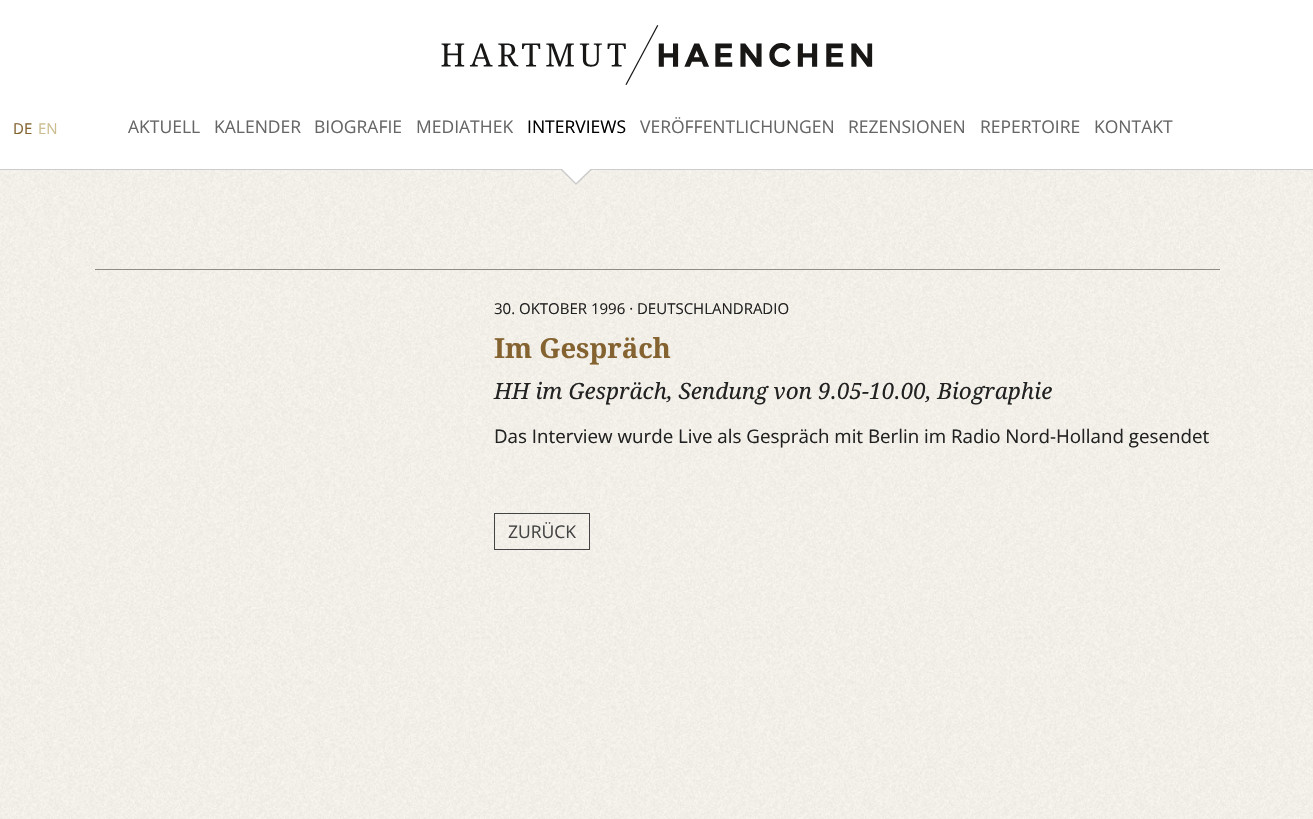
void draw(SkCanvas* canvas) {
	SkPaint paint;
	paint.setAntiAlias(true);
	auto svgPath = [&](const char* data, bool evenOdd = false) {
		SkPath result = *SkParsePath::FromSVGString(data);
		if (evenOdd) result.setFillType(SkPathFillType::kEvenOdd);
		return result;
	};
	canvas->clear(0xffffffff);
	canvas->drawImageRect(SkImages::DeferredFromEncodedData(SkData::MakeFromFileName("img1.png")), SkRect::MakeXYWH(0, 170, 1313, 649), SkSamplingOptions());
	paint.setColor(0xffcccccc);
	canvas->drawRect(SkRect::MakeXYWH(0, 169, 1313, 1), paint);
	canvas->drawImageRect(SkImages::DeferredFromEncodedData(SkData::MakeFromFileName("img2.png")), SkRect::MakeXYWH(441, 25, 432, 60), SkSamplingOptions());
	SkFont f1(fontMgr->matchFamilyStyle("Open Sans", SkFontStyle::Normal()), 15);
	f1.setSubpixel(true);
	paint.setColor(0xff846331);
	canvas->drawString("DE", 13, 134, f1, paint);
	paint.setColor(0xffccbe90);
	canvas->drawString("EN", 38, 134, f1, paint);
	SkFont f2(fontMgr->matchFamilyStyle("Open Sans", SkFontStyle::Normal()), 17.5);
	f2.setSubpixel(true);
	paint.setColor(0xff666666);
	canvas->drawString("AKTUELL", 128, 133, f2, paint);
	canvas->drawString("KALENDER", 214, 133, f2, paint);
	canvas->drawString("BIOGRAFIE", 314, 133, f2, paint);
	canvas->drawString("MEDIATHEK", 416, 133, f2, paint);
	canvas->save();
	canvas->clipRect(SkRect::MakeXYWH(560, 169, 33, 16));
	paint.setColor(0xffcbcbcb);
	canvas->drawPath(svgPath("M576 185L560 169L576 152.5L592.5 169Z"), paint);
	paint.setColor(0xffffffff);
	canvas->drawPath(svgPath("M560 167L576 150.5L592.5 167L576 183Z"), paint);
	canvas->restore();
	paint.setColor(0xff000000);
	canvas->drawString("INTERVIEWS", 527, 133, f2, paint);
	paint.setColor(0xff666666);
	canvas->drawString("VERÖFFENTLICHUNGEN", 640, 133, f2, paint);
	canvas->drawString("REZENSIONEN", 848, 133, f2, paint);
	canvas->drawString("REPERTOIRE", 980, 133, f2, paint);
	canvas->drawString("KONTAKT", 1094, 133, f2, paint);
	paint.setColor(0xff8e8c87);
	canvas->drawRect(SkRect::MakeXYWH(95, 269, 1125, 1), paint);
	paint.setColor(0xff222222);
	canvas->drawString("30. OKTOBER 1996 · DEUTSCHLANDRADIO", 494, 314, f1, paint);
	SkFont f3(fontMgr->matchFamilyStyle("Droid Serif", SkFontStyle::Bold()), 27.5);
	f3.setSubpixel(true);
	paint.setColor(0xff846331);
	canvas->drawString("Im Gespräch", 494, 358, f3, paint);
	SkFont f4(fontMgr->matchFamilyStyle("Droid Serif", SkFontStyle::Italic()), 22.5);
	f4.setSubpixel(true);
	paint.setColor(0xff222222);
	canvas->drawString("HH im Gespräch, Sendung von 9.05-10.00, Biographie", 494, 399, f4, paint);
	SkFont f5(fontMgr->matchFamilyStyle("Open Sans", SkFontStyle::Normal()), 18.75);
	f5.setSubpixel(true);
	canvas->drawString("Das Interview wurde Live als Gespräch mit Berlin im Radio Nord-Holland gesendet", 494, 443, f5, paint);
	paint.setStroke(true);
	paint.setStrokeWidth(1);
	paint.setColor(0xff444444);
	canvas->drawRect(SkRect::MakeXYWH(494.5, 513.5, 95, 36), paint);
	paint.setStroke(false);
	canvas->drawString("ZURÜCK", 508, 538, f2, paint);
}
